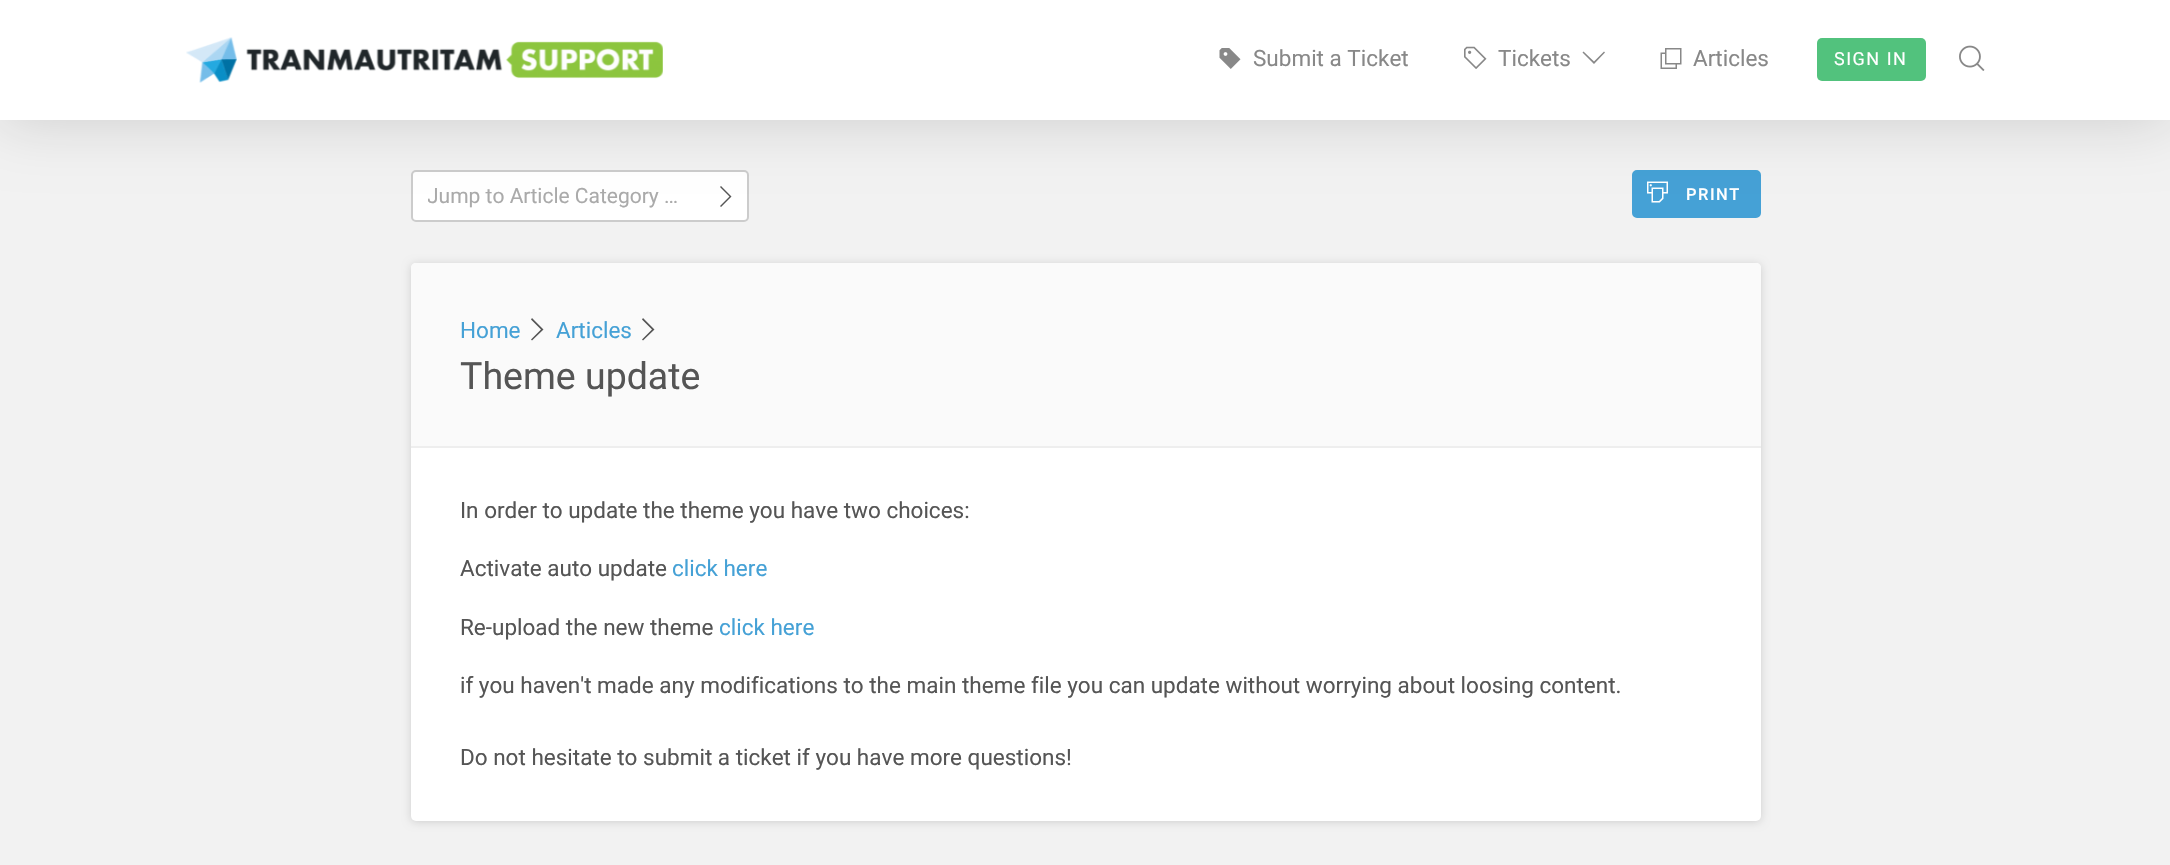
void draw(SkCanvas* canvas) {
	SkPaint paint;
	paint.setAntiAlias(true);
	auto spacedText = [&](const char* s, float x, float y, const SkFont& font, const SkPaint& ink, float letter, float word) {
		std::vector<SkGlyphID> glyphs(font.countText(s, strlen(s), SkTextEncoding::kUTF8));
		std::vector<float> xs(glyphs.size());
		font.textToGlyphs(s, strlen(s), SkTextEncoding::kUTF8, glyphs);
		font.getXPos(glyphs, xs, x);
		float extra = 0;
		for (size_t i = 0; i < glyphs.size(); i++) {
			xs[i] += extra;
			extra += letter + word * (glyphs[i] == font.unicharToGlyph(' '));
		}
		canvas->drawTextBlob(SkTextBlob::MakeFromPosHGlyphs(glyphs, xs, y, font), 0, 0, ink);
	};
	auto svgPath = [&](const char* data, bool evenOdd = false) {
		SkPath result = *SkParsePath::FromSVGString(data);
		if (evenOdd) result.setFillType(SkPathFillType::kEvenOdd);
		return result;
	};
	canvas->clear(0xfff2f2f2);
	paint.setColor(0xffffffff);
	canvas->drawRoundRect(SkRect::MakeXYWH(412, 171, 336, 50), 4, 4, paint);
	paint.setStroke(true);
	paint.setStrokeWidth(2);
	paint.setColor(0xffcccccc);
	canvas->drawRoundRect(SkRect::MakeXYWH(412, 171, 336, 50), 4, 4, paint);
	paint.setStroke(false);
	paint.setColor(0xff555555);
	canvas->drawPath(svgPath("M721 186L731.5 196.5L721 207L720 206L729.5 196.5L720 187Z"), paint);
	paint.setColor(0xff45a1d6);
	canvas->drawRoundRect(SkRect::MakeXYWH(1633, 171, 127, 46), 4, 4, paint);
	paint.setStroke(true);
	canvas->drawRoundRect(SkRect::MakeXYWH(1633, 171, 127, 46), 4, 4, paint);
	canvas->drawImageRect(SkImages::DeferredFromEncodedData(SkData::MakeFromFileName("img6.png")), SkRect::MakeXYWH(1647, 181, 21, 22), SkSamplingOptions());
	paint.setStroke(false);
	paint.setColor(0x26000000);
	paint.setMaskFilter(SkMaskFilter::MakeBlur(kNormal_SkBlurStyle, 30));
	canvas->drawRect(SkRect::MakeXYWH(0, 2, 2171, 120), paint);
	paint.setMaskFilter(nullptr);
	paint.setColor(0xffffffff);
	canvas->drawRect(SkRect::MakeXYWH(0, 0, 2170, 120), paint);
	canvas->drawImageRect(SkImages::DeferredFromEncodedData(SkData::MakeFromFileName("img1.png")), SkRect::MakeXYWH(186, 37, 477, 46), SkSamplingOptions());
	canvas->drawImageRect(SkImages::DeferredFromEncodedData(SkData::MakeFromFileName("img2.png")), SkRect::MakeXYWH(1219, 48, 22, 21), SkSamplingOptions());
	SkFont f1(fontMgr->matchFamilyStyle("Roboto", SkFontStyle::Normal()), 22.5);
	f1.setSubpixel(true);
	paint.setColor(0xff888888);
	canvas->drawString("Submit a Ticket", 1253, 66, f1, paint);
	canvas->drawImageRect(SkImages::DeferredFromEncodedData(SkData::MakeFromFileName("img3.png")), SkRect::MakeXYWH(1464, 46, 23, 23), SkSamplingOptions());
	canvas->drawString("Tickets", 1498, 66, f1, paint);
	canvas->drawPath(svgPath("M1594 64L1582.5 52.5L1583.5 51.5L1594 61.5L1604 51.5L1605 52.5Z"), paint);
	canvas->drawImageRect(SkImages::DeferredFromEncodedData(SkData::MakeFromFileName("img4.png")), SkRect::MakeXYWH(1660, 48, 22, 21), SkSamplingOptions());
	canvas->drawString("Articles", 1693, 66, f1, paint);
	paint.setColor(0xff52c27d);
	canvas->drawRoundRect(SkRect::MakeXYWH(1817, 38, 109, 43), 5, 5, paint);
	SkFont f2(fontMgr->matchFamilyStyle("Roboto", SkFontStyle::Normal()), 18);
	f2.setSubpixel(true);
	paint.setColor(0xffffffff);
	spacedText("SIGN IN", 1834, 65, f2, paint, 1.5, 0);
	canvas->drawImageRect(SkImages::DeferredFromEncodedData(SkData::MakeFromFileName("img5.png")), SkRect::MakeXYWH(1959, 45, 26, 26), SkSamplingOptions());
	canvas->save();
	canvas->clipRect(SkRect::MakeXYWH(428, 170, 274, 52));
	SkFont f3(fontMgr->matchFamilyStyle("Roboto", SkFontStyle::Normal()), 21);
	f3.setSubpixel(true);
	paint.setColor(0xffaaaaaa);
	canvas->drawString("Jump to Article Category …", 427, 203, f3, paint);
	canvas->restore();
	SkFont f4(fontMgr->matchFamilyStyle("Roboto", SkFontStyle(500, SkFontStyle::kNormal_Width, SkFontStyle::kUpright_Slant)), 16.5);
	f4.setSubpixel(true);
	paint.setColor(0xffffffff);
	spacedText("PRINT", 1686, 200, f4, paint, 1.5, 0);
	paint.setColor(0x26000000);
	paint.setMaskFilter(SkMaskFilter::MakeBlur(kNormal_SkBlurStyle, 4));
	canvas->drawRoundRect(SkRect::MakeXYWH(411, 264, 1350, 558), 5, 5, paint);
	paint.setMaskFilter(nullptr);
	paint.setColor(0xffffffff);
	canvas->drawRoundRect(SkRect::MakeXYWH(411, 263, 1350, 558), 5, 5, paint);
	paint.setColor(0xfffafafa);
	canvas->drawPath(svgPath("M416 263H1756C1759 263 1761 265 1761 268V447H411V268C411 265 413 263 416 263Z"), paint);
	paint.setColor(0xffeeeeee);
	canvas->drawRect(SkRect::MakeXYWH(411, 446, 1350, 2), paint);
	paint.setColor(0xff45a1d6);
	canvas->drawString("Home", 460, 338, f1, paint);
	paint.setColor(0xff555555);
	canvas->drawPath(svgPath("M532 318L543.5 329.5L532 340.5L531 339.5L541 329.5L531 319.5Z"), paint);
	paint.setColor(0xff45a1d6);
	canvas->drawString("Articles", 556, 338, f1, paint);
	paint.setColor(0xff555555);
	canvas->drawPath(svgPath("M643 318L654.5 329.5L643 340.5L642 339.5L652 329.5L642 319.5Z"), paint);
	SkFont f5(fontMgr->matchFamilyStyle("Roboto", SkFontStyle::Normal()), 37.5);
	f5.setSubpixel(true);
	canvas->drawString("Theme update", 460, 389, f5, paint);
	canvas->drawString("In order to update the theme you have two choices:", 460, 518, f1, paint);
	canvas->drawString("Activate auto update", 460, 576, f1, paint);
	paint.setColor(0xff45a1d6);
	canvas->drawString("click here", 672, 576, f1, paint);
	paint.setColor(0xff555555);
	canvas->drawString("Re-upload the new theme", 460, 635, f1, paint);
	paint.setColor(0xff45a1d6);
	canvas->drawString("click here", 719, 635, f1, paint);
	paint.setColor(0xff555555);
	canvas->drawString("if you haven't made any modifications to the main theme file you can update without worrying about loosing content.", 460, 693, f1, paint);
	canvas->drawString("Do not hesitate to submit a ticket if you have more questions!", 460, 765, f1, paint);
}
